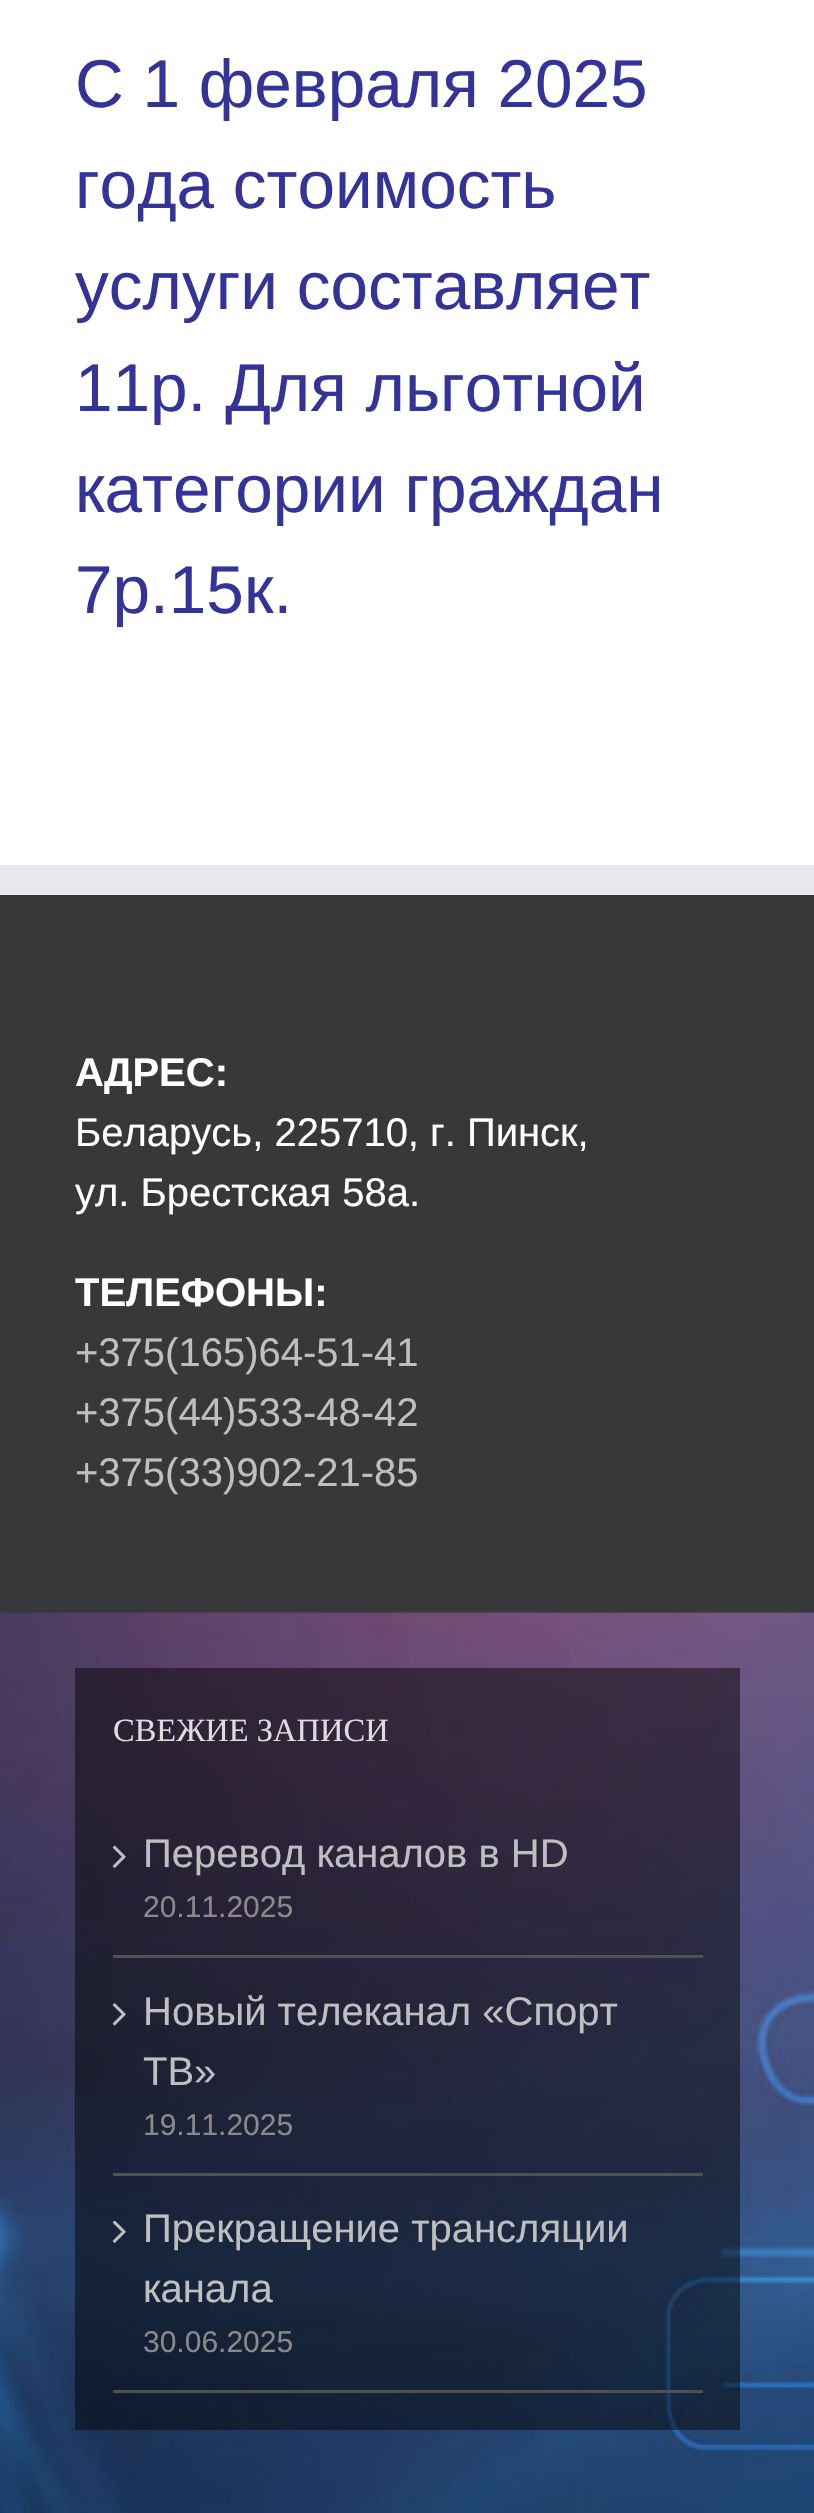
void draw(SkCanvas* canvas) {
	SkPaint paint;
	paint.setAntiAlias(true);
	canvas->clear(0xffffffff);
	SkFont f1(fontMgr->matchFamilyStyle("Liberation Sans", SkFontStyle::Normal()), 67.5);
	f1.setSubpixel(true);
	paint.setColor(0xff333399);
	canvas->drawString("С 1 февраля 2025", 75, 107, f1, paint);
	canvas->drawString("года стоимость", 75, 208, f1, paint);
	canvas->drawString("услуги составляет", 75, 309, f1, paint);
	canvas->drawString("11р. Для льготной", 75, 411, f1, paint);
	canvas->drawString("категории граждан", 75, 512, f1, paint);
	canvas->drawString("7р.15к.", 75, 613, f1, paint);
	paint.setColor(0xff363839);
	canvas->drawRect(SkRect::MakeXYWH(0, 895, 814, 719), paint);
	canvas->drawImageRect(SkImages::DeferredFromEncodedData(SkData::MakeFromFileName("img1.png")), SkRect::MakeXYWH(0, 1611, 814, 902), SkSamplingOptions());
	paint.setColor(0xffe9eaee);
	canvas->drawRect(SkRect::MakeXYWH(0, 865, 814, 30), paint);
	SkFont f2(fontMgr->matchFamilyStyle("Liberation Sans", SkFontStyle::Bold()), 40);
	f2.setSubpixel(true);
	paint.setColor(0xffffffff);
	canvas->drawString("АДРЕС:", 75, 1086, f2, paint);
	SkFont f3(fontMgr->matchFamilyStyle("Liberation Sans", SkFontStyle::Normal()), 40);
	f3.setSubpixel(true);
	canvas->drawString("Беларусь, 225710, г. Пинск,", 75, 1146, f3, paint);
	canvas->drawString("ул. Брестская 58а.", 75, 1206, f3, paint);
	canvas->drawString("ТЕЛЕФОНЫ:", 75, 1306, f2, paint);
	paint.setColor(0xffbfbfbf);
	canvas->drawString("+375(165)64-51-41", 75, 1366, f3, paint);
	canvas->drawString("+375(44)533-48-42", 75, 1426, f3, paint);
	canvas->drawString("+375(33)902-21-85", 75, 1486, f3, paint);
	paint.setColor(0x78000000);
	canvas->drawRect(SkRect::MakeXYWH(75, 1668, 665, 762), paint);
	SkFont f4(fontMgr->matchFamilyStyle("Liberation Serif", SkFontStyle::Normal()), 32.5);
	f4.setSubpixel(true);
	paint.setColor(0xffdddddd);
	canvas->drawString("СВЕЖИЕ ЗАПИСИ", 113, 1741, f4, paint);
	paint.setColor(0xff505152);
	canvas->drawRect(SkRect::MakeXYWH(113, 1955, 590, 3), paint);
	canvas->drawImageRect(SkImages::DeferredFromEncodedData(SkData::MakeFromFileName("img2.png")), SkRect::MakeXYWH(112, 1845, 14, 23), SkSamplingOptions());
	paint.setColor(0xffbfbfbf);
	canvas->drawString("Перевод каналов в HD", 143, 1867, f3, paint);
	SkFont f5(fontMgr->matchFamilyStyle("Liberation Sans", SkFontStyle::Normal()), 30);
	f5.setSubpixel(true);
	paint.setColor(0xff8c8989);
	canvas->drawString("20.11.2025", 143, 1917, f5, paint);
	paint.setColor(0xff505152);
	canvas->drawRect(SkRect::MakeXYWH(113, 2173, 590, 3), paint);
	canvas->drawImageRect(SkImages::DeferredFromEncodedData(SkData::MakeFromFileName("img3.png")), SkRect::MakeXYWH(112, 2003, 14, 23), SkSamplingOptions());
	paint.setColor(0xffbfbfbf);
	canvas->drawString("Новый телеканал «Спорт", 143, 2025, f3, paint);
	canvas->drawString("ТВ»", 143, 2085, f3, paint);
	paint.setColor(0xff8c8989);
	canvas->drawString("19.11.2025", 143, 2135, f5, paint);
	paint.setColor(0xff505152);
	canvas->drawRect(SkRect::MakeXYWH(113, 2390, 590, 3), paint);
	canvas->drawImageRect(SkImages::DeferredFromEncodedData(SkData::MakeFromFileName("img4.png")), SkRect::MakeXYWH(112, 2220, 14, 23), SkSamplingOptions());
	paint.setColor(0xffbfbfbf);
	canvas->drawString("Прекращение трансляции", 143, 2242, f3, paint);
	canvas->drawString("канала", 143, 2302, f3, paint);
	paint.setColor(0xff8c8989);
	canvas->drawString("30.06.2025", 143, 2352, f5, paint);
}
